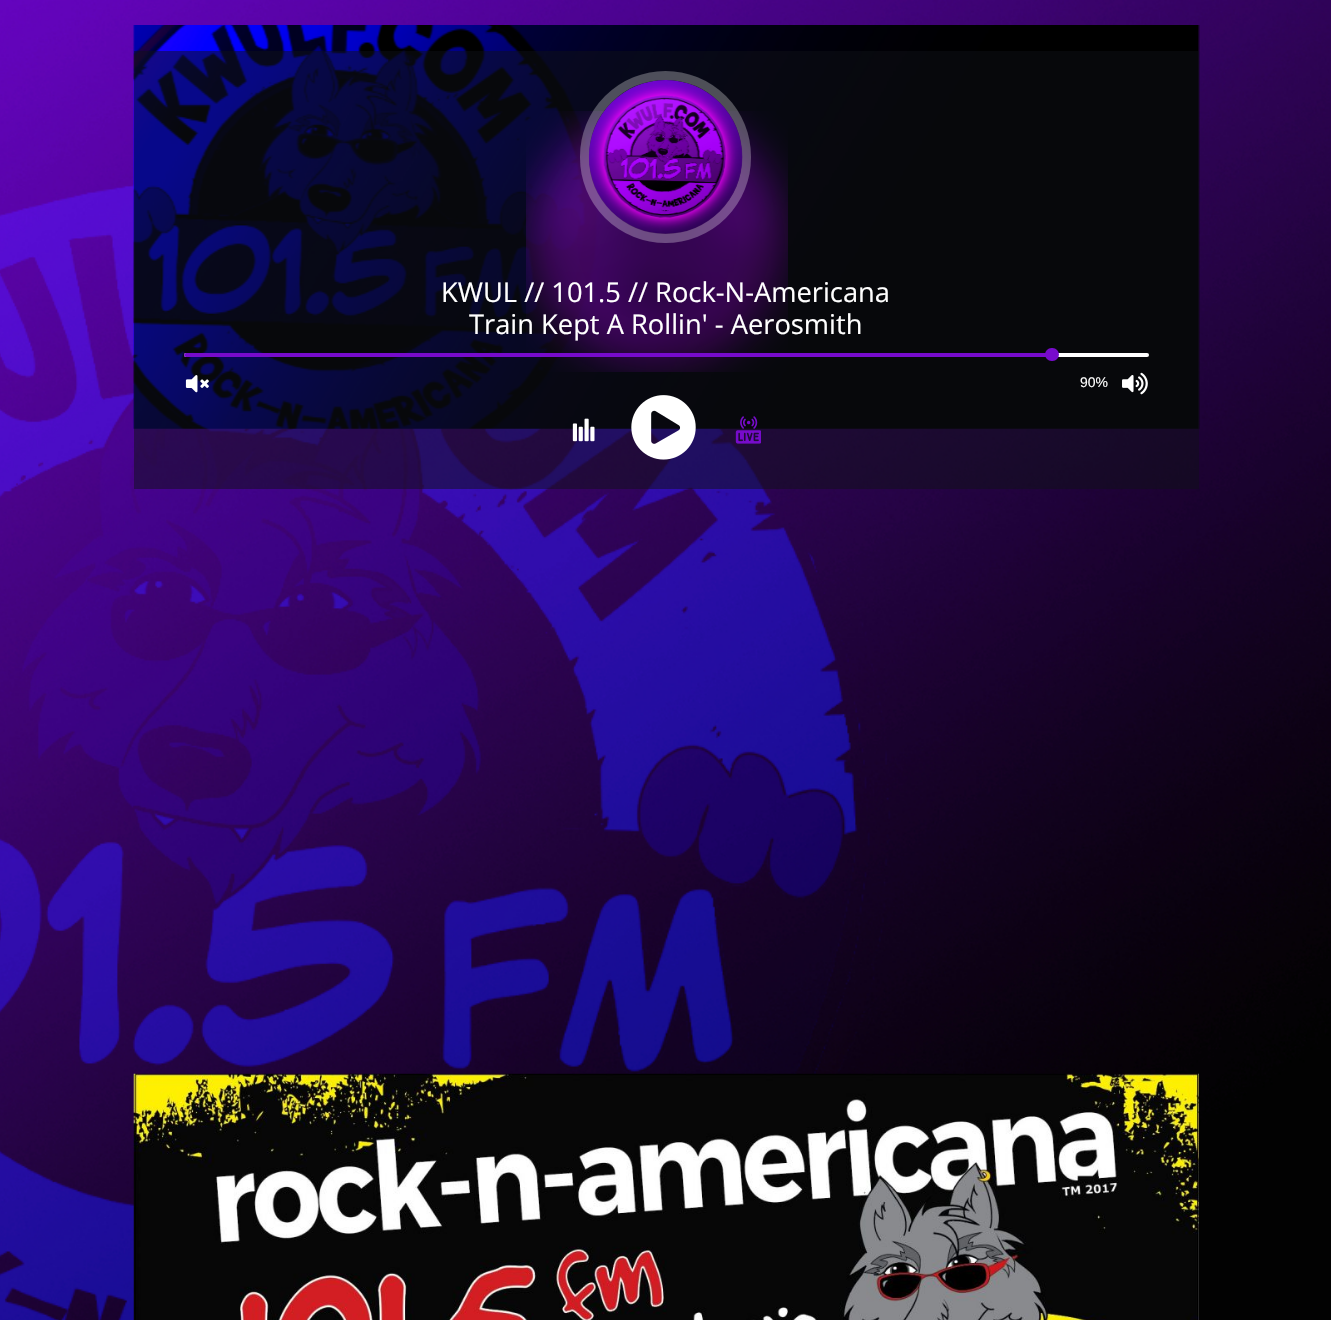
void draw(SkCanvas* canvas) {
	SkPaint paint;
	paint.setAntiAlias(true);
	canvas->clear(0xffffffff);
	canvas->drawImageRect(SkImages::DeferredFromEncodedData(SkData::MakeFromFileName("img1.png")), SkRect::MakeXYWH(0, 0, 1331, 1320), SkSamplingOptions());
	canvas->drawImageRect(SkImages::DeferredFromEncodedData(SkData::MakeFromFileName("img2.png")), SkRect::MakeXYWH(133, 25, 1067, 404), SkSamplingOptions());
	paint.setColor(0x800e1015);
	canvas->drawRect(SkRect::MakeXYWH(134, 51, 1065, 438), paint);
	canvas->drawImageRect(SkImages::DeferredFromEncodedData(SkData::MakeFromFileName("img3.png")), SkRect::MakeXYWH(526, 111, 262, 261), SkSamplingOptions());
	paint.setColor(0x1affffff);
	canvas->drawRoundRect(SkRect::MakeXYWH(580, 71, 171, 172), 85.5, 85.5, paint);
	paint.setStroke(true);
	paint.setStrokeWidth(9);
	paint.setColor(0x33ffffff);
	canvas->drawRoundRect(SkRect::MakeXYWH(584.5, 75.5, 162, 163), 81, 81, paint);
	canvas->drawImageRect(SkImages::DeferredFromEncodedData(SkData::MakeFromFileName("img4.png")), SkRect::MakeXYWH(588, 80, 155, 154), SkSamplingOptions());
	SkFont f1(fontMgr->matchFamilyStyle("Open Sans", SkFontStyle::Normal()), 27.3);
	f1.setSubpixel(true);
	paint.setStroke(false);
	paint.setColor(0xffffffff);
	canvas->drawString("KWUL // 101.5 // Rock-N-Americana", 441, 302, f1, paint);
	canvas->drawString("Train Kept A Rollin' - Aerosmith", 469, 334, f1, paint);
	canvas->drawRoundRect(SkRect::MakeXYWH(184, 353, 965, 4), 2, 2, paint);
	paint.setColor(0xff770bcc);
	canvas->drawRoundRect(SkRect::MakeXYWH(184, 353, 867, 4), 2, 2, paint);
	canvas->drawRoundRect(SkRect::MakeXYWH(1045, 348, 14, 13), 6.5, 6.5, paint);
	canvas->drawImageRect(SkImages::DeferredFromEncodedData(SkData::MakeFromFileName("img5.png")), SkRect::MakeXYWH(185, 375, 24, 18), SkSamplingOptions());
	SkFont f2(fontMgr->matchFamilyStyle("Liberation Sans", SkFontStyle::Normal()), 14);
	f2.setSubpixel(true);
	paint.setColor(0xffffffff);
	canvas->drawString("90%", 1080, 387, f2, paint);
	canvas->drawImageRect(SkImages::DeferredFromEncodedData(SkData::MakeFromFileName("img6.png")), SkRect::MakeXYWH(1122, 372, 26, 23), SkSamplingOptions());
	canvas->drawImageRect(SkImages::DeferredFromEncodedData(SkData::MakeFromFileName("img7.png")), SkRect::MakeXYWH(572, 418, 23, 24), SkSamplingOptions());
	canvas->drawImageRect(SkImages::DeferredFromEncodedData(SkData::MakeFromFileName("img8.png")), SkRect::MakeXYWH(631, 395, 65, 65), SkSamplingOptions());
	canvas->drawImageRect(SkImages::DeferredFromEncodedData(SkData::MakeFromFileName("img9.png")), SkRect::MakeXYWH(735, 416, 26, 28), SkSamplingOptions());
	canvas->drawImageRect(SkImages::DeferredFromEncodedData(SkData::MakeFromFileName("img10.png")), SkRect::MakeXYWH(133, 1073, 1066, 247), SkSamplingOptions());
}
